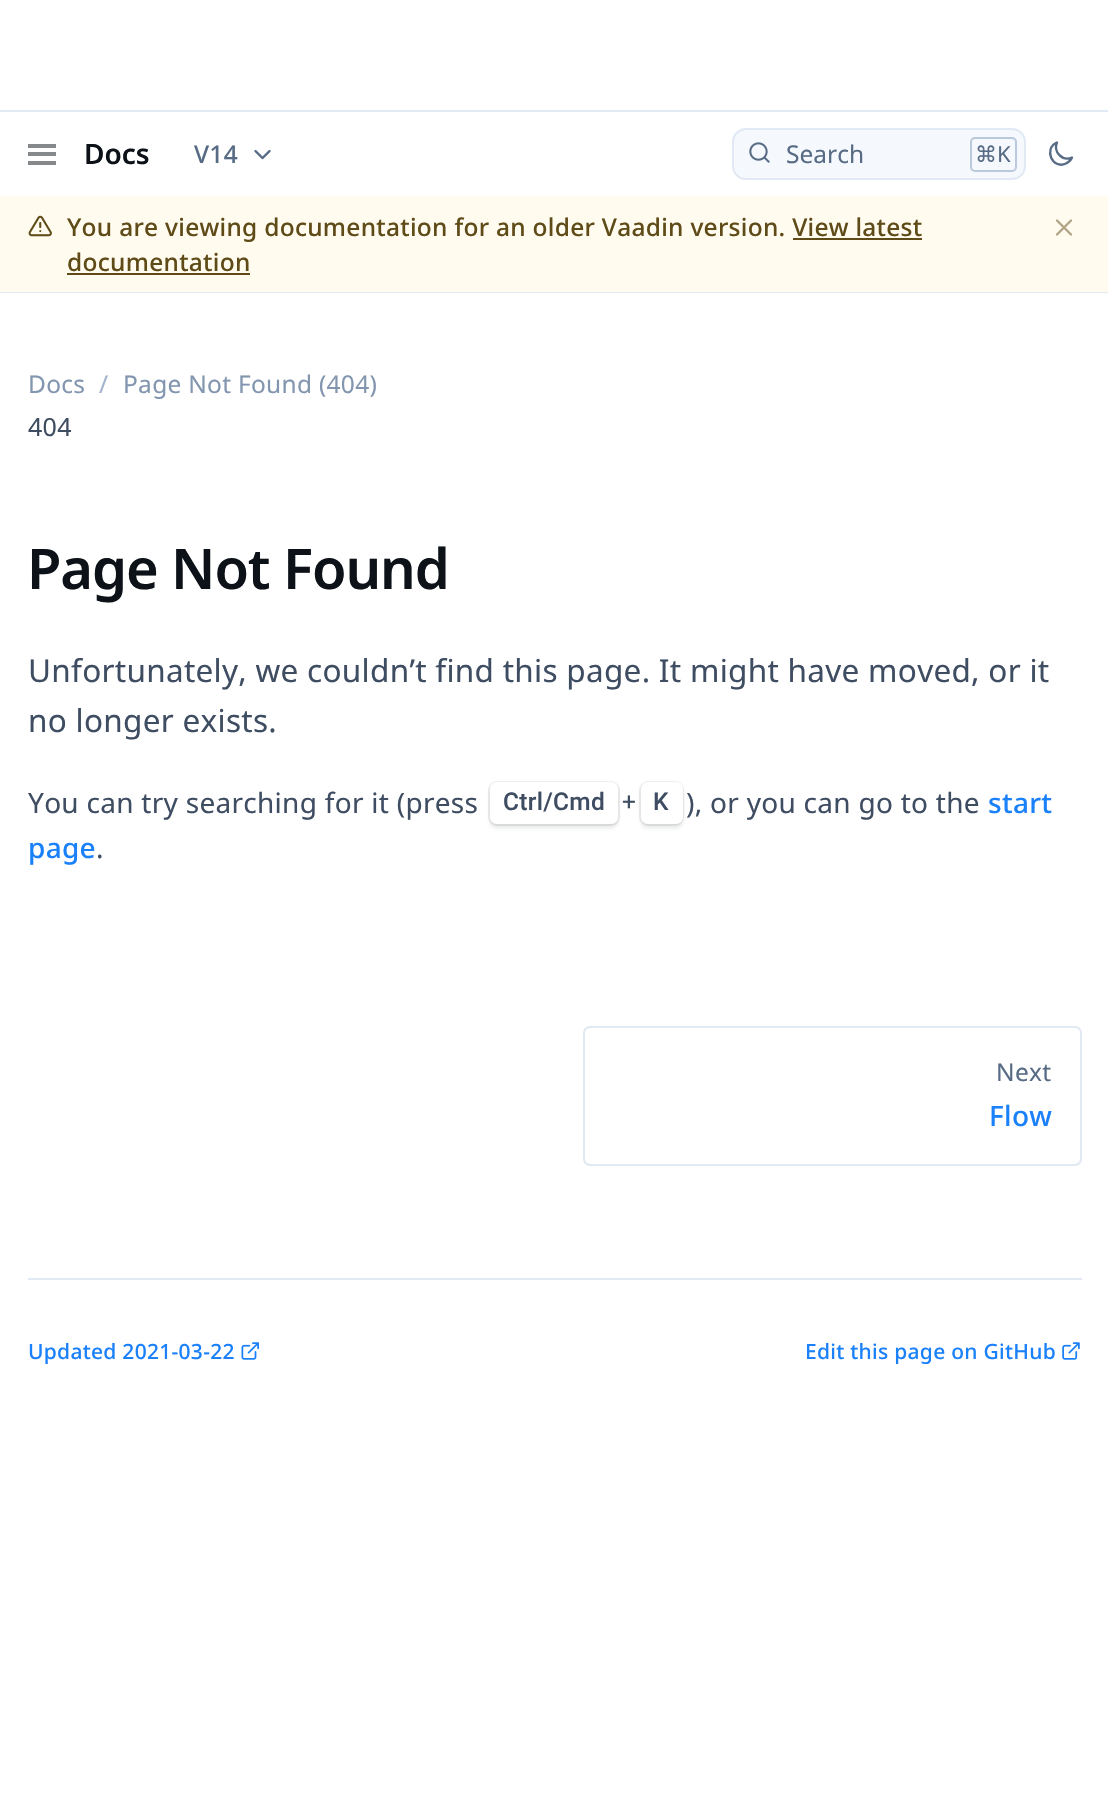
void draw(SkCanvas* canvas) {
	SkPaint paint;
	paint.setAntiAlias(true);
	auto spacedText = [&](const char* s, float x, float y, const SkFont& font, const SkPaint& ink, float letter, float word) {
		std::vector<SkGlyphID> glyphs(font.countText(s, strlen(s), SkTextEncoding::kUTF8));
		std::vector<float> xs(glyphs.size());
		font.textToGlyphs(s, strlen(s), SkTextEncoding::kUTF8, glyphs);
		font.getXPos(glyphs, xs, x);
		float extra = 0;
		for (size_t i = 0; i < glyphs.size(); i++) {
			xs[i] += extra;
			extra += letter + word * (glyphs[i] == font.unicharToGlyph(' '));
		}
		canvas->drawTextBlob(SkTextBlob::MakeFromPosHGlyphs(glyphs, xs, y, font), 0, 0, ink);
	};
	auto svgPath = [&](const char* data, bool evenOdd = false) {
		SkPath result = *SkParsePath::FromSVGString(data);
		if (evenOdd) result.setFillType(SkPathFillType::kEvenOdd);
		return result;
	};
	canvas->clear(0xffffffff);
	paint.setColor(0xffe0e9f4);
	canvas->drawPath(svgPath("M0 110V112H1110V291V110Z"), paint);
	canvas->drawRect(SkRect::MakeXYWH(0, 292, 1108, 1), paint);
	paint.setColor(0xff86898c);
	canvas->drawRect(SkRect::MakeXYWH(28, 161, 28, 4), paint);
	canvas->drawRect(SkRect::MakeXYWH(28, 152, 28, 4), paint);
	canvas->drawRect(SkRect::MakeXYWH(28, 144, 28, 4), paint);
	SkFont f1(fontMgr->matchFamilyStyle("Noto Sans", SkFontStyle(600, SkFontStyle::kNormal_Width, SkFontStyle::kUpright_Slant)), 28);
	f1.setSubpixel(true);
	paint.setColor(0xff0d1219);
	canvas->drawString("Docs", 84, 164, f1, paint);
	SkFont f2(fontMgr->matchFamilyStyle("Noto Sans", SkFontStyle(500, SkFontStyle::kNormal_Width, SkFontStyle::kUpright_Slant)), 24.5);
	f2.setSubpixel(true);
	paint.setColor(0xff576b85);
	spacedText("V14", 194, 163, f2, paint, 0.28, 0);
	canvas->drawImageRect(SkImages::DeferredFromEncodedData(SkData::MakeFromFileName("img1.png")), SkRect::MakeXYWH(254, 149, 17, 11), SkSamplingOptions());
	paint.setColor(0xfff5f8fd);
	canvas->drawRoundRect(SkRect::MakeXYWH(733, 129, 292, 50), 13, 13, paint);
	paint.setStroke(true);
	paint.setStrokeWidth(2);
	paint.setColor(0xffe0e9f4);
	canvas->drawRoundRect(SkRect::MakeXYWH(733, 129, 292, 50), 13, 13, paint);
	canvas->drawImageRect(SkImages::DeferredFromEncodedData(SkData::MakeFromFileName("img2.png")), SkRect::MakeXYWH(749, 142, 21, 21), SkSamplingOptions());
	SkFont f3(fontMgr->matchFamilyStyle("Noto Sans", SkFontStyle::Normal()), 24.5);
	f3.setSubpixel(true);
	paint.setStroke(false);
	paint.setColor(0xff576b85);
	canvas->drawString("Search", 786, 163, f3, paint);
	paint.setStroke(true);
	paint.setColor(0xffbbc9dc);
	canvas->drawRoundRect(SkRect::MakeXYWH(971, 138, 45, 33), 4, 4, paint);
	SkFont f4(fontMgr->matchFamilyStyle("DejaVu Sans", SkFontStyle::Normal()), 22);
	f4.setSubpixel(true);
	paint.setStroke(false);
	paint.setColor(0xff576b85);
	canvas->drawString("⌘", 975, 162, f4, paint);
	SkFont f5(fontMgr->matchFamilyStyle("Noto Sans", SkFontStyle::Normal()), 22);
	f5.setSubpixel(true);
	canvas->drawString("K", 997, 162, f5, paint);
	paint.setStroke(true);
	paint.setStrokeWidth(2.3);
	paint.setStrokeCap(SkPaint::kRound_Cap);
	paint.setStrokeJoin(SkPaint::kRound_Join);
	canvas->drawPath(svgPath("M1072 157.5C1062.5 161.5 1053 152 1057 142.5C1043 148.5 1052.5 170 1066 163.5C1069 162 1071 160 1072 157.5Z"), paint);
	paint.setStroke(false);
	paint.setColor(0xfffffbef);
	canvas->drawRect(SkRect::MakeXYWH(0, 196, 1108, 96), paint);
	canvas->drawImageRect(SkImages::DeferredFromEncodedData(SkData::MakeFromFileName("img3.png")), SkRect::MakeXYWH(28, 215, 24, 22), SkSamplingOptions());
	paint.setColor(0xff5f4b18);
	spacedText("You are viewing documentation for an older Vaadin version. View latest", 67, 236, f2, paint, 0.28, 0);
	spacedText("documentation", 67, 271, f2, paint, 0.28, 0);
	canvas->drawRect(SkRect::MakeXYWH(793, 238, 129, 2), paint);
	canvas->drawRect(SkRect::MakeXYWH(67, 273, 183, 2), paint);
	paint.setStroke(true);
	paint.setColor(0xffafa384);
	canvas->drawPath(svgPath("M1057 234.5L1071 220.5M1057 220.5L1071 234.5"), paint);
	paint.setStroke(false);
	paint.setColor(0xff8396af);
	spacedText("Docs", 28, 393, f3, paint, 0.28, 0);
	paint.setColor(0xffa2b4cb);
	spacedText("/", 99, 393, f3, paint, 0.28, 0);
	paint.setColor(0xff8396af);
	spacedText("Page Not Found (404)", 123, 393, f3, paint, 0.28, 0);
	SkFont f6(fontMgr->matchFamilyStyle("Noto Sans", SkFontStyle::Normal()), 25);
	f6.setSubpixel(true);
	paint.setColor(0xff3f4d62);
	spacedText("404", 28, 436, f6, paint, 0.28, 0);
	SkFont f7(fontMgr->matchFamilyStyle("Noto Sans", SkFontStyle(600, SkFontStyle::kNormal_Width, SkFontStyle::kUpright_Slant)), 56);
	f7.setSubpixel(true);
	paint.setColor(0xff0d1219);
	spacedText("Page Not Found", 27, 589, f7, paint, -1.1, 0);
	SkFont f8(fontMgr->matchFamilyStyle("Noto Sans", SkFontStyle::Normal()), 31.5);
	f8.setSubpixel(true);
	paint.setColor(0xff3f4d62);
	spacedText("Unfortunately, we couldn’t find this page. It might have moved, or it", 28, 682, f8, paint, 0.28, 0);
	spacedText("no longer exists.", 28, 732, f8, paint, 0.28, 0);
	SkFont f9(fontMgr->matchFamilyStyle("Noto Sans", SkFontStyle::Normal()), 28);
	f9.setSubpixel(true);
	spacedText("You can try searching for it (press", 28, 813, f9, paint, 0.28, 0);
	paint.setStroke(true);
	paint.setStrokeWidth(2);
	paint.setStrokeCap(SkPaint::kButt_Cap);
	paint.setStrokeJoin(SkPaint::kMiter_Join);
	paint.setColor(0xffeeeeef);
	canvas->drawRoundRect(SkRect::MakeXYWH(489, 782, 130, 43), 8, 8, paint);
	paint.setStroke(false);
	paint.setColor(0x1a0c1118);
	paint.setMaskFilter(SkMaskFilter::MakeBlur(kNormal_SkBlurStyle, 2));
	canvas->drawRoundRect(SkRect::MakeXYWH(490, 786, 128, 42), 7, 7, paint);
	paint.setMaskFilter(nullptr);
	paint.setColor(0xffffffff);
	canvas->drawRoundRect(SkRect::MakeXYWH(490, 782, 128, 42), 7, 7, paint);
	SkFont f10(fontMgr->matchFamilyStyle("Roboto", SkFontStyle(500, SkFontStyle::kNormal_Width, SkFontStyle::kUpright_Slant)), 24.5);
	f10.setSubpixel(true);
	paint.setColor(0xff3f4d62);
	spacedText("Ctrl/Cmd", 503, 810, f10, paint, 0.28, 0);
	SkFont f11(fontMgr->matchFamilyStyle("Roboto", SkFontStyle::Normal()), 24.5);
	f11.setSubpixel(true);
	spacedText("+", 622, 810, f11, paint, 0.28, 0);
	paint.setStroke(true);
	paint.setColor(0xffeeeeef);
	canvas->drawRoundRect(SkRect::MakeXYWH(640, 782, 43, 43), 8, 8, paint);
	paint.setStroke(false);
	paint.setColor(0x1a0c1118);
	paint.setMaskFilter(SkMaskFilter::MakeBlur(kNormal_SkBlurStyle, 2));
	canvas->drawRoundRect(SkRect::MakeXYWH(641, 786, 42, 42), 7, 7, paint);
	paint.setMaskFilter(nullptr);
	paint.setColor(0xffffffff);
	canvas->drawRoundRect(SkRect::MakeXYWH(641, 782, 42, 42), 7, 7, paint);
	paint.setColor(0xff3f4d62);
	spacedText("K", 653, 810, f10, paint, 0.28, 0);
	spacedText("), or you can go to the", 686, 813, f9, paint, 0.28, 0);
	SkFont f12(fontMgr->matchFamilyStyle("Noto Sans", SkFontStyle(500, SkFontStyle::kNormal_Width, SkFontStyle::kUpright_Slant)), 28);
	f12.setSubpixel(true);
	paint.setColor(0xff1a81fa);
	spacedText("start", 988, 813, f12, paint, 0.28, 0);
	spacedText("page", 28, 858, f12, paint, 0.28, 0);
	paint.setColor(0xff3f4d62);
	spacedText(".", 96, 858, f9, paint, 0.28, 0);
	paint.setStroke(true);
	paint.setColor(0xffe0e9f4);
	canvas->drawRoundRect(SkRect::MakeXYWH(584, 1027, 497, 138), 6, 6, paint);
	paint.setStroke(false);
	paint.setColor(0xff576b85);
	spacedText("Next", 996, 1081, f3, paint, 0.28, 0);
	paint.setColor(0xff1a81fa);
	spacedText("Flow", 989, 1126, f12, paint, 0.28, 0);
	paint.setColor(0xffe0e9f4);
	canvas->drawRect(SkRect::MakeXYWH(28, 1278, 1054, 2), paint);
	SkFont f13(fontMgr->matchFamilyStyle("Noto Sans", SkFontStyle(500, SkFontStyle::kNormal_Width, SkFontStyle::kUpright_Slant)), 21);
	f13.setSubpixel(true);
	paint.setColor(0xff1a81fa);
	spacedText("Updated 2021-03-22", 28, 1359, f13, paint, 0.28, 0);
	canvas->drawImageRect(SkImages::DeferredFromEncodedData(SkData::MakeFromFileName("img4.png")), SkRect::MakeXYWH(241, 1342, 18, 18), SkSamplingOptions());
	spacedText("Edit this page on GitHub", 805, 1359, f13, paint, 0.28, 0);
	canvas->drawImageRect(SkImages::DeferredFromEncodedData(SkData::MakeFromFileName("img5.png")), SkRect::MakeXYWH(1062, 1342, 18, 18), SkSamplingOptions());
}
